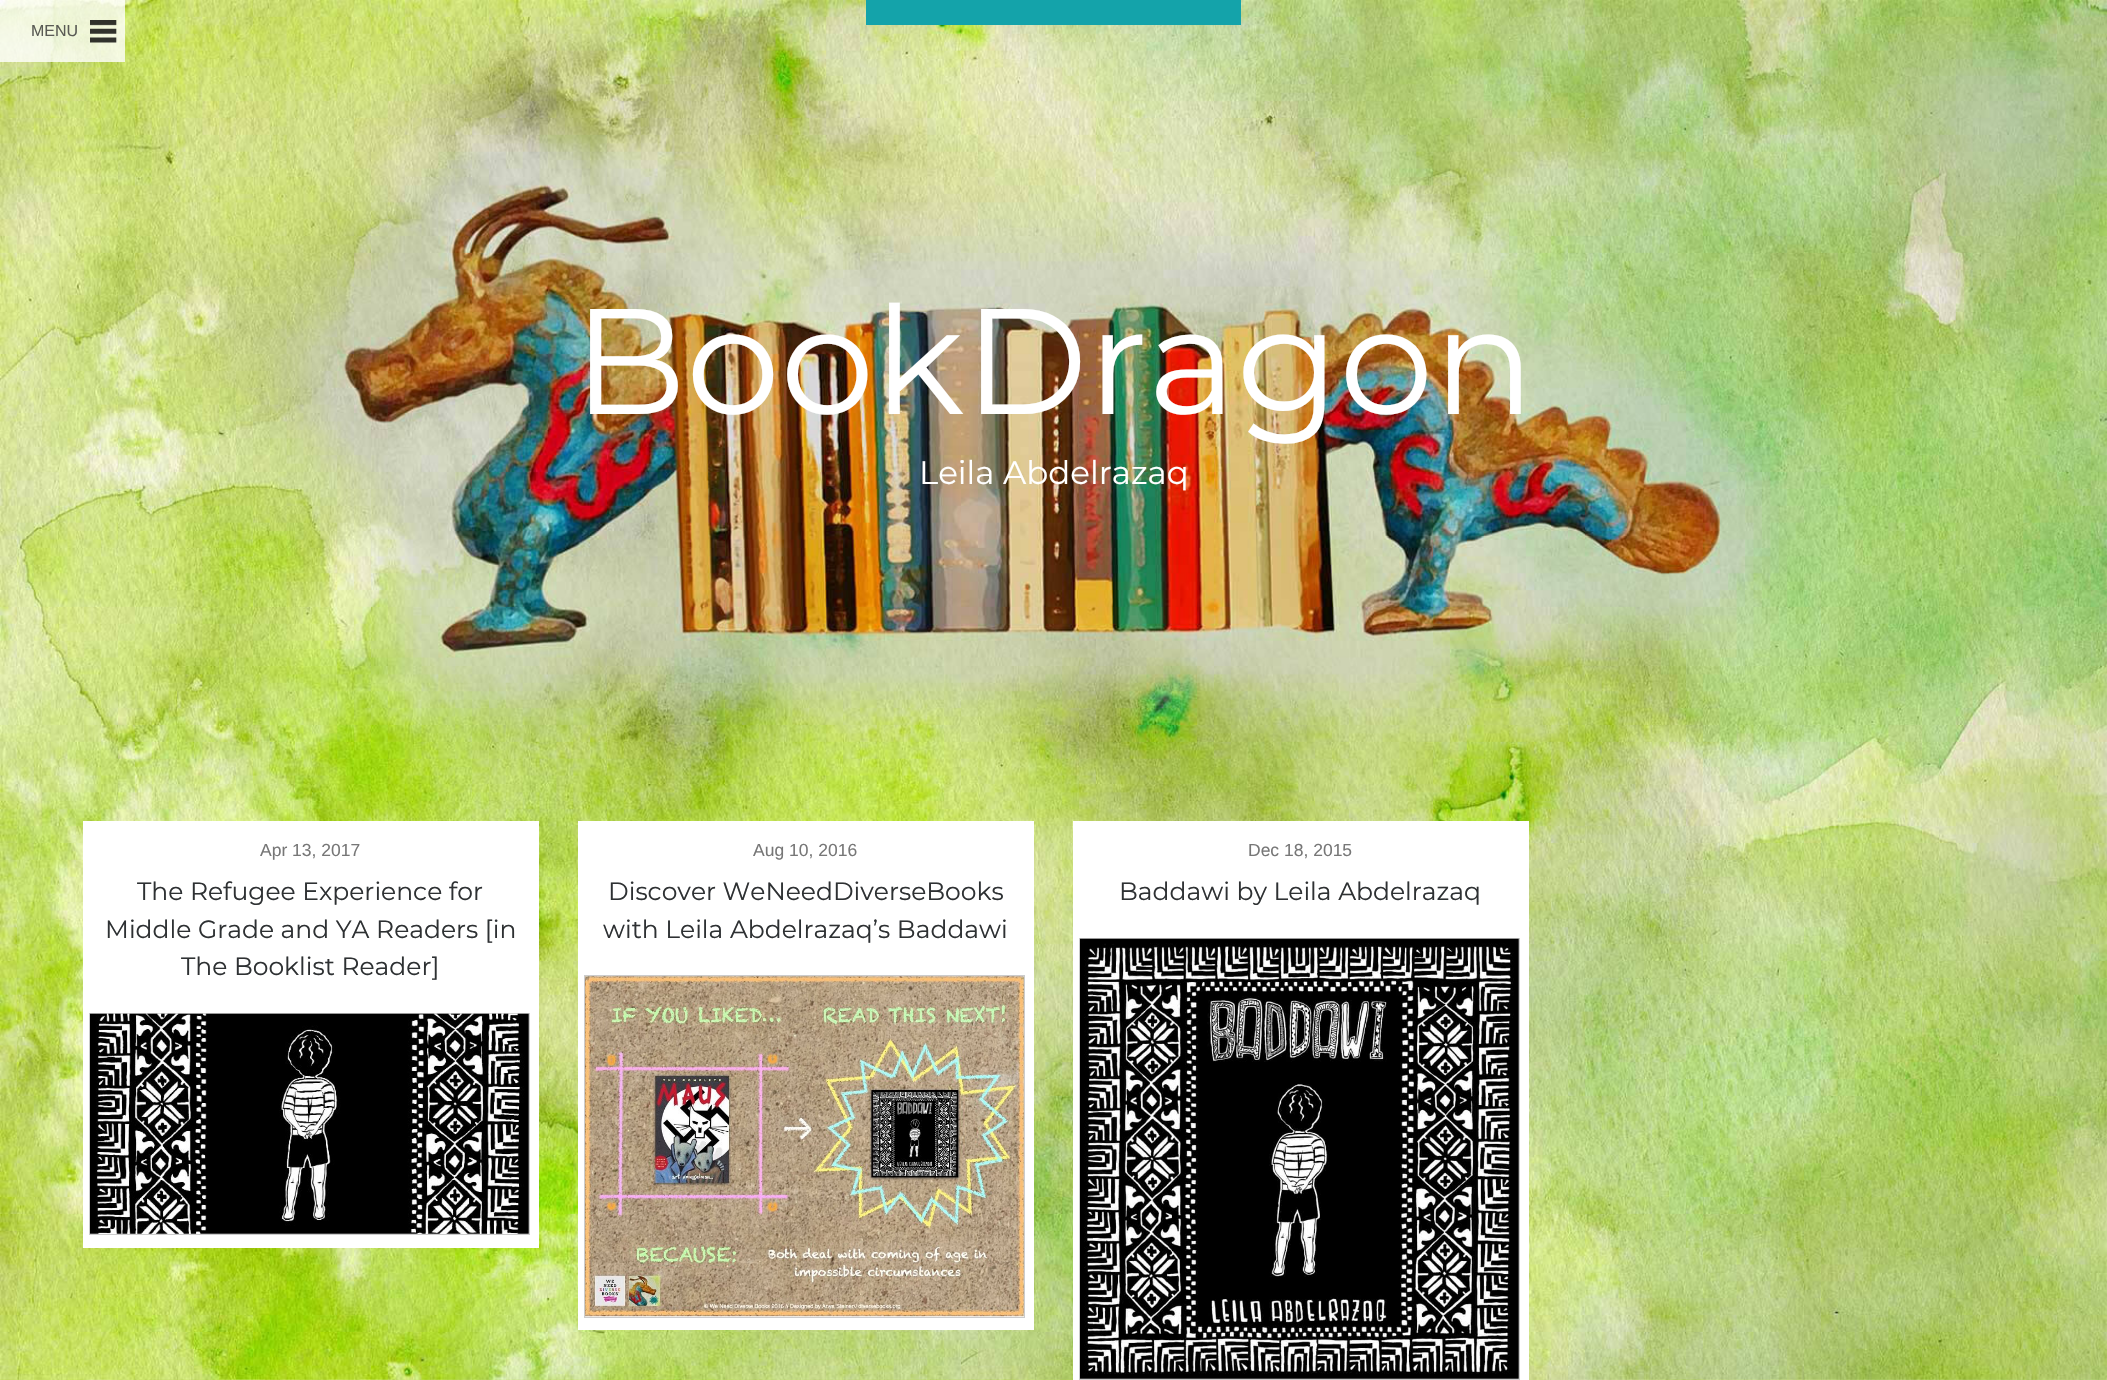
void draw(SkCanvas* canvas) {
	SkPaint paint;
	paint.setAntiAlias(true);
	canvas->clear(0xffffffff);
	canvas->drawImageRect(SkImages::DeferredFromEncodedData(SkData::MakeFromFileName("img1.png")), SkRect::MakeXYWH(0, 1379, 2107, 1), SkSamplingOptions());
	canvas->drawImageRect(SkImages::DeferredFromEncodedData(SkData::MakeFromFileName("img3.png")), SkRect::MakeXYWH(0, 0, 2107, 1380), SkSamplingOptions());
	paint.setColor(0xff14a3aa);
	canvas->drawRect(SkRect::MakeXYWH(866, 0, 375, 25), paint);
	paint.setColor(0xccffffff);
	canvas->drawRect(SkRect::MakeXYWH(0, 0, 125, 62), paint);
	canvas->drawImageRect(SkImages::DeferredFromEncodedData(SkData::MakeFromFileName("img2.png")), SkRect::MakeXYWH(90, 20, 27, 23), SkSamplingOptions());
	SkFont f1(fontMgr->matchFamilyStyle("Liberation Sans", SkFontStyle::Normal()), 16);
	f1.setSubpixel(true);
	paint.setColor(0xff595a54);
	canvas->drawString("MENU", 31, 36, f1, paint);
	SkFont f2(fontMgr->matchFamilyStyle("Montserrat", SkFontStyle::Normal()), 150);
	f2.setSubpixel(true);
	paint.setColor(0xffffffff);
	canvas->drawString("BookDragon", 573, 414, f2, paint);
	SkFont f3(fontMgr->matchFamilyStyle("Montserrat", SkFontStyle::Normal()), 32.5);
	f3.setSubpixel(true);
	canvas->drawString("Leila Abdelrazaq", 919, 484, f3, paint);
	canvas->drawRect(SkRect::MakeXYWH(83, 821, 456, 427), paint);
	SkFont f4(fontMgr->matchFamilyStyle("Liberation Sans", SkFontStyle::Normal()), 17.5);
	f4.setSubpixel(true);
	paint.setColor(0xff777777);
	canvas->drawString("Apr 13, 2017", 260, 856, f4, paint);
	SkFont f5(fontMgr->matchFamilyStyle("Montserrat", SkFontStyle::Normal()), 25);
	f5.setSubpixel(true);
	paint.setColor(0xff2e3133);
	canvas->drawString("The Refugee Experience for", 137, 900, f5, paint);
	canvas->drawString("Middle Grade and YA Readers [in", 105, 938, f5, paint);
	canvas->drawString("The Booklist Reader]", 181, 975, f5, paint);
	paint.setStroke(true);
	paint.setStrokeWidth(1);
	paint.setColor(0xffcccccc);
	canvas->drawRect(SkRect::MakeXYWH(89.5, 1013.5, 440, 221), paint);
	canvas->drawImageRect(SkImages::DeferredFromEncodedData(SkData::MakeFromFileName("img4.png")), SkRect::MakeXYWH(90, 1013, 439, 221), SkSamplingOptions());
	paint.setStroke(false);
	paint.setColor(0xffffffff);
	canvas->drawRect(SkRect::MakeXYWH(578, 821, 456, 509), paint);
	paint.setColor(0xff777777);
	canvas->drawString("Aug 10, 2016", 753, 856, f4, paint);
	paint.setColor(0xff2e3133);
	canvas->drawString("Discover WeNeedDiverseBooks", 608, 900, f5, paint);
	canvas->drawString("with Leila Abdelrazaq’s Baddawi", 603, 938, f5, paint);
	paint.setStroke(true);
	paint.setColor(0xffcccccc);
	canvas->drawRect(SkRect::MakeXYWH(584.5, 975.5, 440, 342), paint);
	canvas->drawImageRect(SkImages::DeferredFromEncodedData(SkData::MakeFromFileName("img5.png")), SkRect::MakeXYWH(585, 976, 439, 341), SkSamplingOptions());
	paint.setStroke(false);
	paint.setColor(0xffffffff);
	canvas->drawRect(SkRect::MakeXYWH(1073, 821, 456, 559), paint);
	paint.setColor(0xff777777);
	canvas->drawString("Dec 18, 2015", 1248, 856, f4, paint);
	paint.setColor(0xff2e3133);
	canvas->drawString("Baddawi by Leila Abdelrazaq", 1119, 900, f5, paint);
	paint.setStroke(true);
	paint.setColor(0xffcccccc);
	canvas->drawRect(SkRect::MakeXYWH(1079.5, 938.5, 440, 441), paint);
	canvas->drawImageRect(SkImages::DeferredFromEncodedData(SkData::MakeFromFileName("img6.png")), SkRect::MakeXYWH(1080, 938, 439, 441), SkSamplingOptions());
}
